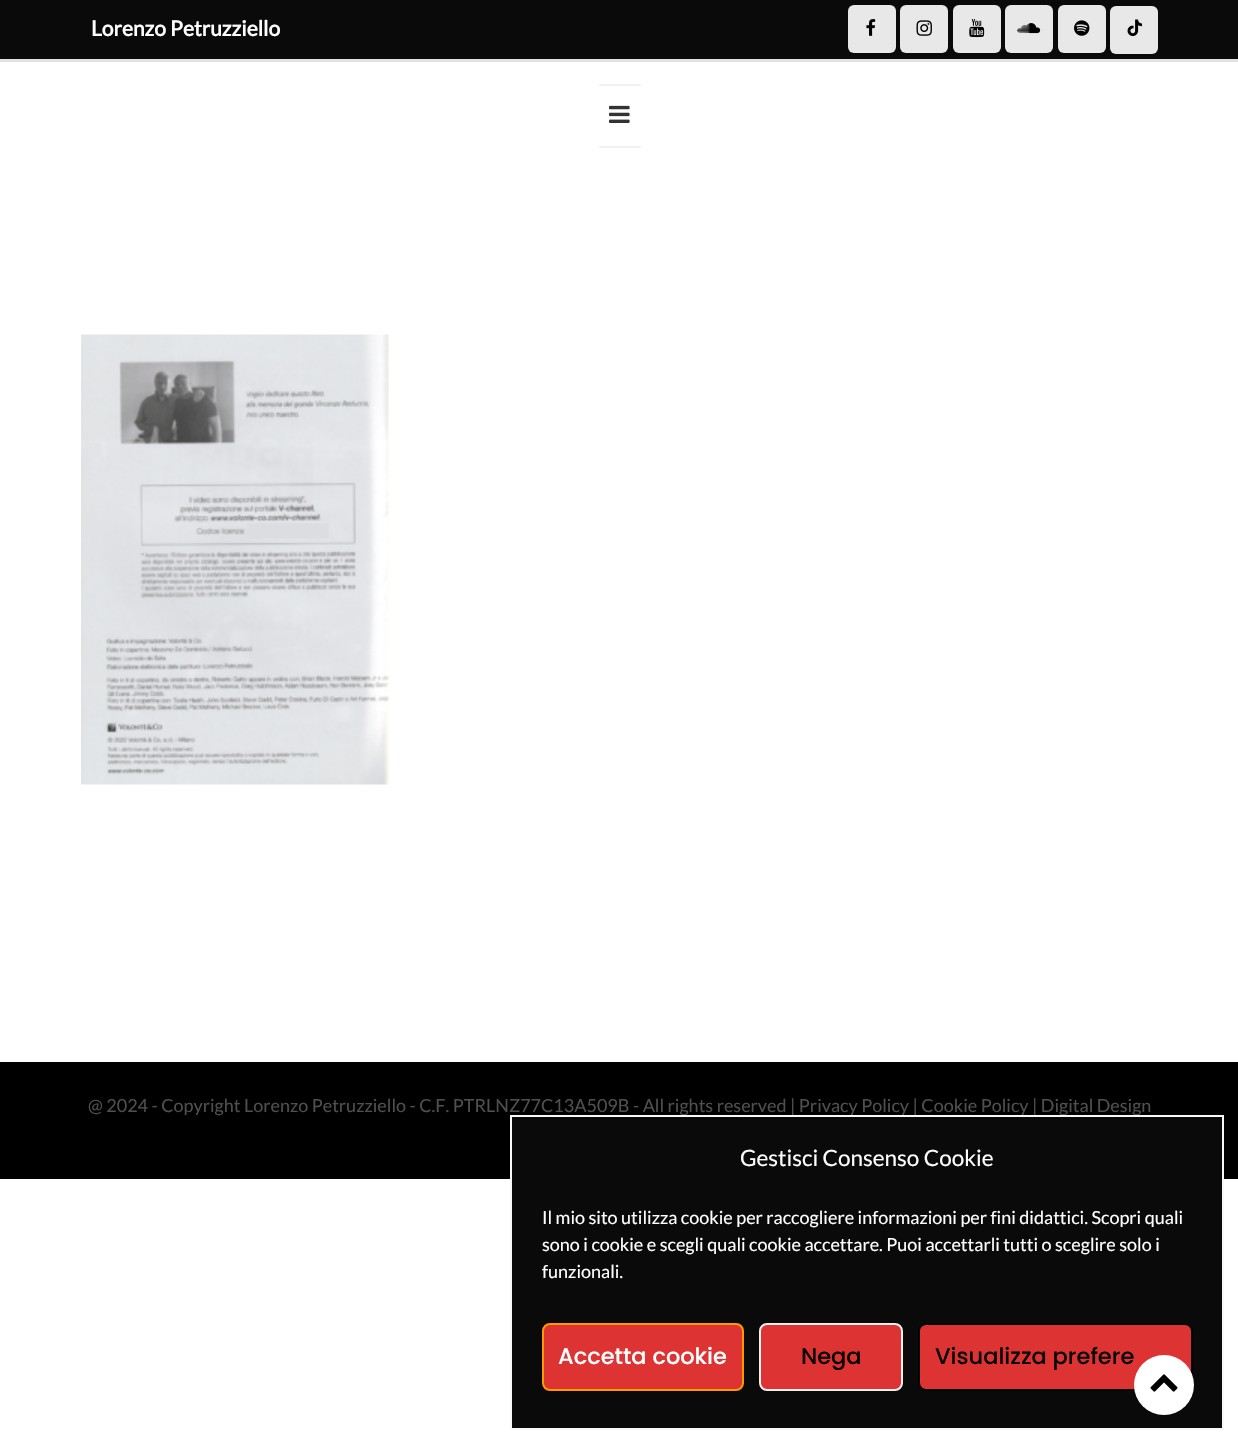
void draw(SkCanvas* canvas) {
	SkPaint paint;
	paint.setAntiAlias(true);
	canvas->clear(0xffffffff);
	paint.setColor(0xff0a0a0a);
	canvas->drawRect(SkRect::MakeXYWH(0, 0, 1238, 59), paint);
	paint.setColor(0xffe2e2e2);
	canvas->drawRect(SkRect::MakeXYWH(0, 59, 1238, 3), paint);
	SkFont f1(fontMgr->matchFamilyStyle("Lato", SkFontStyle::Bold()), 21);
	f1.setSubpixel(true);
	paint.setColor(0xffffffff);
	canvas->drawString("Lorenzo Petruzziello", 91, 36, f1, paint);
	paint.setColor(0xffe8e8e8);
	canvas->drawRoundRect(SkRect::MakeXYWH(848, 5, 48, 48), 6, 6, paint);
	canvas->drawImageRect(SkImages::DeferredFromEncodedData(SkData::MakeFromFileName("img1.png")), SkRect::MakeXYWH(866, 19, 10, 17), SkSamplingOptions());
	canvas->drawRoundRect(SkRect::MakeXYWH(900, 5, 48, 48), 6, 6, paint);
	canvas->drawImageRect(SkImages::DeferredFromEncodedData(SkData::MakeFromFileName("img2.png")), SkRect::MakeXYWH(916, 20, 16, 16), SkSamplingOptions());
	canvas->drawRoundRect(SkRect::MakeXYWH(953, 5, 48, 48), 6, 6, paint);
	canvas->drawImageRect(SkImages::DeferredFromEncodedData(SkData::MakeFromFileName("img3.png")), SkRect::MakeXYWH(969, 19, 16, 19), SkSamplingOptions());
	canvas->drawRoundRect(SkRect::MakeXYWH(1005, 5, 48, 48), 6, 6, paint);
	canvas->drawImageRect(SkImages::DeferredFromEncodedData(SkData::MakeFromFileName("img4.png")), SkRect::MakeXYWH(1017, 23, 24, 11), SkSamplingOptions());
	canvas->drawRoundRect(SkRect::MakeXYWH(1058, 5, 48, 48), 6, 6, paint);
	canvas->drawImageRect(SkImages::DeferredFromEncodedData(SkData::MakeFromFileName("img5.png")), SkRect::MakeXYWH(1074, 20, 16, 16), SkSamplingOptions());
	canvas->drawRoundRect(SkRect::MakeXYWH(1110, 6, 48, 48), 6, 6, paint);
	canvas->drawImageRect(SkImages::DeferredFromEncodedData(SkData::MakeFromFileName("img6.png")), SkRect::MakeXYWH(1127, 19, 16, 17), SkSamplingOptions());
	paint.setColor(0xfff2f2f2);
	canvas->drawRect(SkRect::MakeXYWH(599, 84, 42, 2), paint);
	canvas->drawRect(SkRect::MakeXYWH(599, 146, 42, 2), paint);
	canvas->drawImageRect(SkImages::DeferredFromEncodedData(SkData::MakeFromFileName("img7.png")), SkRect::MakeXYWH(609, 105, 21, 18), SkSamplingOptions());
	canvas->drawImageRect(SkImages::DeferredFromEncodedData(SkData::MakeFromFileName("img8.png")), SkRect::MakeXYWH(81, 334, 308, 451), SkSamplingOptions());
	paint.setColor(0xff000000);
	canvas->drawRect(SkRect::MakeXYWH(0, 1062, 1238, 117), paint);
	SkFont f2(fontMgr->matchFamilyStyle("Lato", SkFontStyle::Normal()), 18);
	f2.setSubpixel(true);
	paint.setColor(0xff4f4f4f);
	canvas->drawString("@ 2024 - Copyright Lorenzo Petruzziello - C.F. PTRLNZ77C13A509B - All rights reserved | Privacy Policy | Cookie Policy | Digital Design", 88, 1112, f2, paint);
	paint.setColor(0xff0a0a0a);
	canvas->drawRect(SkRect::MakeXYWH(511, 1116, 712, 313), paint);
	paint.setStroke(true);
	paint.setStrokeWidth(2);
	paint.setColor(0xfff9f9f9);
	canvas->drawRect(SkRect::MakeXYWH(511, 1116, 712, 313), paint);
	paint.setStroke(false);
	paint.setColor(0xffdd3333);
	canvas->drawRoundRect(SkRect::MakeXYWH(919, 1324, 273, 66), 7, 7, paint);
	paint.setStroke(true);
	paint.setColor(0xff000000);
	canvas->drawRoundRect(SkRect::MakeXYWH(919, 1324, 273, 66), 7, 7, paint);
	paint.setStroke(false);
	paint.setColor(0xffffffff);
	canvas->drawCircle(1164, 1385, 30, paint);
	canvas->drawImageRect(SkImages::DeferredFromEncodedData(SkData::MakeFromFileName("img9.png")), SkRect::MakeXYWH(1150, 1374, 28, 18), SkSamplingOptions());
	SkFont f3(fontMgr->matchFamilyStyle("Lato", SkFontStyle::Normal()), 22.5);
	f3.setSubpixel(true);
	canvas->drawString("Gestisci Consenso Cookie", 740, 1166, f3, paint);
	canvas->drawString("Il mio sito utilizza cookie per raccogliere informazioni per fini didattici. Scopri quali", 542, 1224, f2, paint);
	canvas->drawString("sono i cookie e scegli quali cookie accettare. Puoi accettarli tutti o sceglire solo i", 542, 1251, f2, paint);
	canvas->drawString("funzionali.", 542, 1278, f2, paint);
	paint.setColor(0xffdd3333);
	canvas->drawRoundRect(SkRect::MakeXYWH(543, 1324, 200, 66), 7, 7, paint);
	paint.setStroke(true);
	paint.setColor(0xffff9900);
	canvas->drawRoundRect(SkRect::MakeXYWH(543, 1324, 200, 66), 7, 7, paint);
	SkFont f4(fontMgr->matchFamilyStyle("Poppins", SkFontStyle(500, SkFontStyle::kNormal_Width, SkFontStyle::kUpright_Slant)), 22.5);
	f4.setSubpixel(true);
	paint.setStroke(false);
	paint.setColor(0xffffffff);
	canvas->drawString("Accetta cookie", 558, 1364, f4, paint);
	paint.setColor(0xffdd3333);
	canvas->drawRoundRect(SkRect::MakeXYWH(760, 1324, 142, 66), 7, 7, paint);
	paint.setStroke(true);
	paint.setColor(0xfff1f1f1);
	canvas->drawRoundRect(SkRect::MakeXYWH(760, 1324, 142, 66), 7, 7, paint);
	paint.setStroke(false);
	paint.setColor(0xff0a0000);
	canvas->drawString("Nega", 801, 1364, f4, paint);
	paint.setColor(0xff0a0a0a);
	canvas->drawString("Visualizza prefere", 935, 1364, f4, paint);
}
